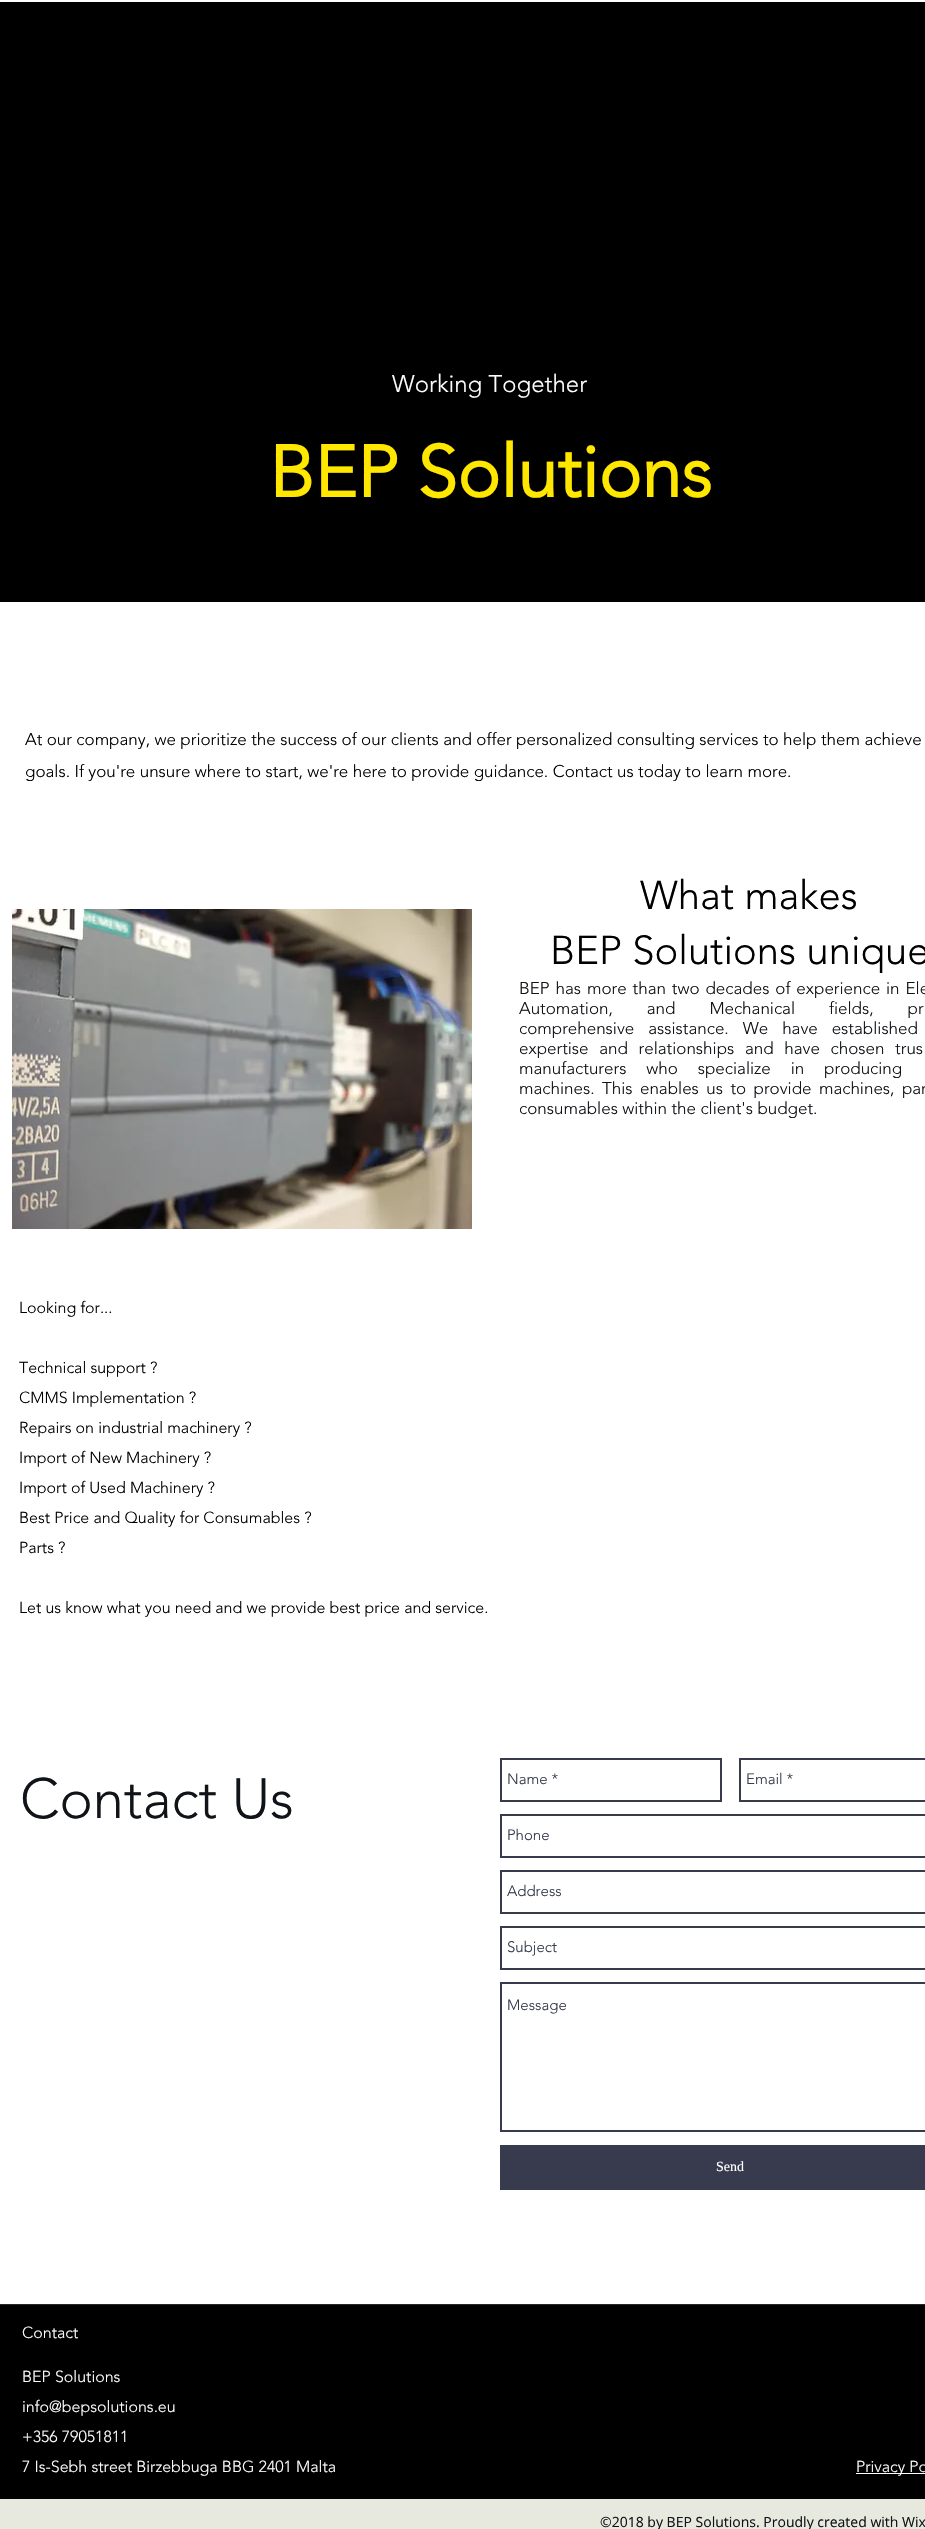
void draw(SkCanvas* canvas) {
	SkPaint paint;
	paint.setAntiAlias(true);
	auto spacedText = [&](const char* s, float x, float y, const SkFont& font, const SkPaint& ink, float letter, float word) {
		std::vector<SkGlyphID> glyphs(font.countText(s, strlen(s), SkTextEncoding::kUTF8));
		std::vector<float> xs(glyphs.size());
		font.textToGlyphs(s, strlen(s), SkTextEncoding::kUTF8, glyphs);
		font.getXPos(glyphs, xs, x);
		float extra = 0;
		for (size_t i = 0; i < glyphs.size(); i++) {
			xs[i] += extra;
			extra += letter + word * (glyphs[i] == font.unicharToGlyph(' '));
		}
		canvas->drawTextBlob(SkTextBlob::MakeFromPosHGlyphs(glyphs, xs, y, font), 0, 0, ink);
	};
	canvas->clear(0xffffffff);
	paint.setColor(0xff000000);
	canvas->drawRect(SkRect::MakeXYWH(0, 2, 925, 600), paint);
	SkFont f1(fontMgr->matchFamilyStyle("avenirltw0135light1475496", SkFontStyle(300, SkFontStyle::kNormal_Width, SkFontStyle::kUpright_Slant)), 24);
	f1.setSubpixel(true);
	paint.setColor(0xffffffff);
	canvas->drawString("Working Together", 392, 392, f1, paint);
	SkFont f2(fontMgr->matchFamilyStyle("avenirltw0135light1475496", SkFontStyle::Bold()), 72);
	f2.setSubpixel(true);
	paint.setColor(0xffffe700);
	canvas->drawString("BEP Solutions", 269, 497, f2, paint);
	SkFont f3(fontMgr->matchFamilyStyle("avenirltw0135light1475496", SkFontStyle(300, SkFontStyle::kNormal_Width, SkFontStyle::kUpright_Slant)), 17);
	f3.setSubpixel(true);
	paint.setColor(0xff000000);
	canvas->drawString("At our company, we prioritize the success of our clients and offer personalized consulting services to help them achieve", 25, 745, f3, paint);
	canvas->drawString("goals. If you're unsure where to start, we're here to provide guidance. Contact us today to learn more.", 25, 777, f3, paint);
	canvas->drawImageRect(SkImages::DeferredFromEncodedData(SkData::MakeFromFileName("img1.png")), SkRect::MakeXYWH(12, 909, 460, 320), SkSamplingOptions());
	SkFont f4(fontMgr->matchFamilyStyle("avenirltw0135light1475496", SkFontStyle(300, SkFontStyle::kNormal_Width, SkFontStyle::kUpright_Slant)), 40);
	f4.setSubpixel(true);
	canvas->drawString("What makes", 640, 909, f4, paint);
	canvas->drawString("BEP Solutions unique", 550, 964, f4, paint);
	paint.setColor(0xff101317);
	spacedText("BEP has more than two decades of experience in Ele", 519, 994, f3, paint, 0, 1.5);
	spacedText("Automation, and Mechanical fields, pr", 519, 1014, f3, paint, 0, 29.5);
	spacedText("comprehensive assistance. We have established", 519, 1034, f3, paint, 0, 9.5);
	spacedText("expertise and relationships and have chosen trus", 519, 1054, f3, paint, 0, 6.25);
	spacedText("manufacturers who specialize in producing", 519, 1074, f3, paint, 0, 15.5);
	spacedText("machines. This enables us to provide machines, par", 519, 1094, f3, paint, 0, 3);
	canvas->drawString("consumables within the client's budget.", 519, 1114, f3, paint);
	SkFont f5(fontMgr->matchFamilyStyle("avenirltw0135light1475496", SkFontStyle(300, SkFontStyle::kNormal_Width, SkFontStyle::kUpright_Slant)), 16);
	f5.setSubpixel(true);
	paint.setColor(0xff000000);
	canvas->drawString("Looking for...", 19, 1313, f5, paint);
	canvas->drawString("Technical support ?", 19, 1373, f5, paint);
	canvas->drawString("CMMS Implementation ?", 19, 1403, f5, paint);
	canvas->drawString("Repairs on industrial machinery ?", 19, 1433, f5, paint);
	canvas->drawString("Import of New Machinery ?", 19, 1463, f5, paint);
	canvas->drawString("Import of Used Machinery ?", 19, 1493, f5, paint);
	canvas->drawString("Best Price and Quality for Consumables ?", 19, 1523, f5, paint);
	canvas->drawString("Parts ?", 19, 1553, f5, paint);
	canvas->drawString("Let us know what you need and we provide best price and service.", 19, 1613, f5, paint);
	SkFont f6(fontMgr->matchFamilyStyle("avenirltw0135light1475496", SkFontStyle(300, SkFontStyle::kNormal_Width, SkFontStyle::kUpright_Slant)), 56);
	f6.setSubpixel(true);
	paint.setColor(0xff101317);
	canvas->drawString("Contact Us", 20, 1818, f6, paint);
	paint.setStroke(true);
	paint.setStrokeWidth(2);
	paint.setColor(0xff373b4d);
	canvas->drawRect(SkRect::MakeXYWH(501, 1759, 220, 42), paint);
	SkFont f7(fontMgr->matchFamilyStyle("avenirltw0135light1475496", SkFontStyle(300, SkFontStyle::kNormal_Width, SkFontStyle::kUpright_Slant)), 15);
	f7.setSubpixel(true);
	paint.setStroke(false);
	canvas->drawString("Name *", 507, 1784, f7, paint);
	paint.setStroke(true);
	canvas->drawRect(SkRect::MakeXYWH(740, 1759, 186, 42), paint);
	paint.setStroke(false);
	canvas->drawString("Email *", 746, 1784, f7, paint);
	paint.setStroke(true);
	canvas->drawRect(SkRect::MakeXYWH(501, 1815, 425, 42), paint);
	paint.setStroke(false);
	canvas->drawString("Phone", 507, 1840, f7, paint);
	paint.setStroke(true);
	canvas->drawRect(SkRect::MakeXYWH(501, 1871, 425, 42), paint);
	paint.setStroke(false);
	canvas->drawString("Address", 507, 1896, f7, paint);
	paint.setStroke(true);
	canvas->drawRect(SkRect::MakeXYWH(501, 1927, 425, 42), paint);
	paint.setStroke(false);
	canvas->drawString("Subject", 507, 1952, f7, paint);
	paint.setStroke(true);
	canvas->drawRect(SkRect::MakeXYWH(501, 1983, 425, 148), paint);
	paint.setStroke(false);
	canvas->drawString("Message", 507, 2010, f7, paint);
	canvas->drawRect(SkRect::MakeXYWH(500, 2145, 425, 45), paint);
	SkFont f8(fontMgr->matchFamilyStyle("Liberation Serif", SkFontStyle::Normal()), 14);
	f8.setSubpixel(true);
	paint.setColor(0xffffffff);
	canvas->drawString("Send", 716, 2171, f8, paint);
	paint.setColor(0xff000000);
	canvas->drawRect(SkRect::MakeXYWH(0, 2305, 925, 194), paint);
	paint.setColor(0xff262626);
	canvas->drawRect(SkRect::MakeXYWH(0, 2304, 925, 1), paint);
	paint.setColor(0xffffffff);
	canvas->drawString("Contact", 22, 2338, f5, paint);
	canvas->drawString("BEP Solutions", 22, 2382, f5, paint);
	canvas->drawString("info@bepsolutions.eu", 22, 2412, f5, paint);
	canvas->drawString("+356 79051811", 22, 2442, f5, paint);
	canvas->drawString("7 Is-Sebh street Birzebbuga BBG 2401 Malta", 22, 2472, f5, paint);
	canvas->drawRect(SkRect::MakeXYWH(856, 2473, 69, 1), paint);
	canvas->drawString("Privacy Po", 856, 2472, f5, paint);
	paint.setColor(0xffe7e9de);
	canvas->drawRect(SkRect::MakeXYWH(0, 2499, 925, 30), paint);
	SkFont f9(fontMgr->matchFamilyStyle("Open Sans", SkFontStyle::Normal()), 14);
	f9.setSubpixel(true);
	paint.setColor(0xff101317);
	canvas->drawString("©2018 by BEP Solutions. Proudly created with Wix", 600, 2527, f9, paint);
}
